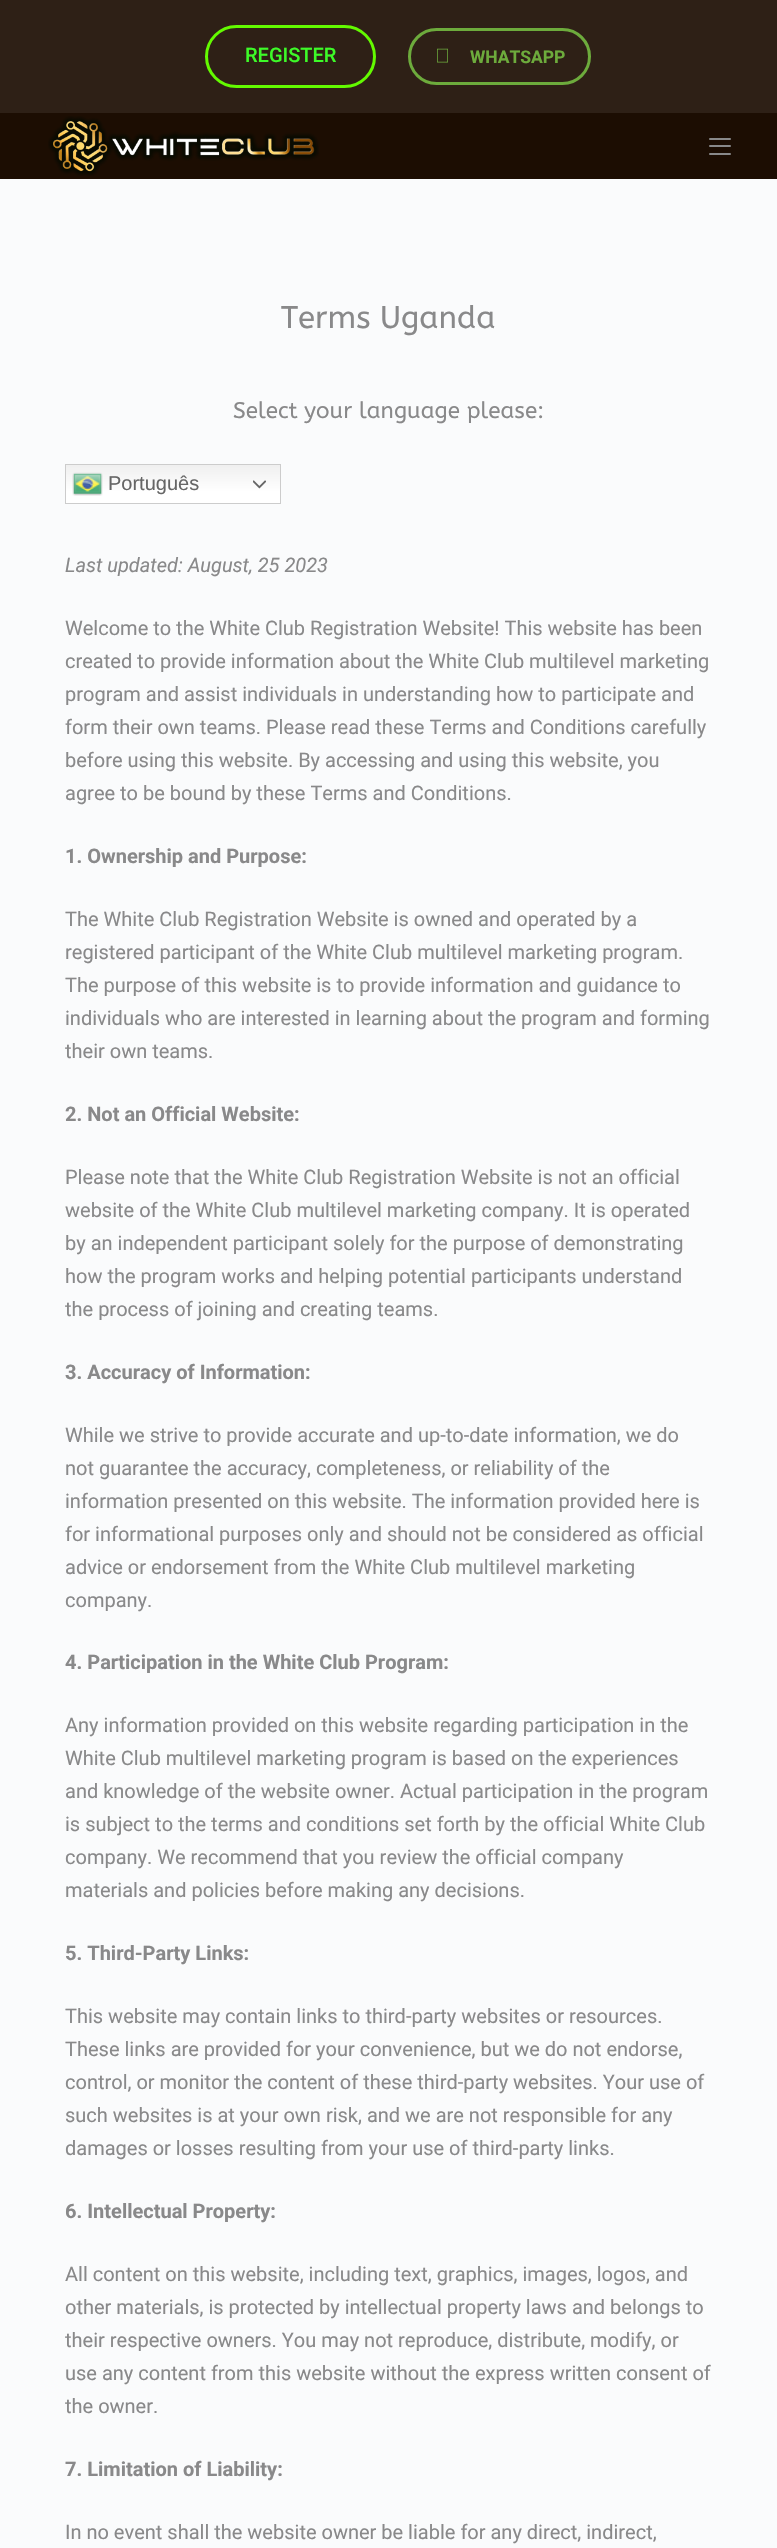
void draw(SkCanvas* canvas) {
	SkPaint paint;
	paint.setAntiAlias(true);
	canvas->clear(0xfffafbfc);
	paint.setColor(0xff2e2016);
	canvas->drawRect(SkRect::MakeXYWH(0, 0, 777, 113), paint);
	paint.setStroke(true);
	paint.setStrokeWidth(3);
	paint.setColor(0xff63fa00);
	canvas->drawRoundRect(SkRect::MakeXYWH(206.5, 26.5, 168, 60), 30, 30, paint);
	SkFont f1(fontMgr->matchFamilyStyle("Roboto", SkFontStyle(500, SkFontStyle::kNormal_Width, SkFontStyle::kUpright_Slant)), 20);
	f1.setSubpixel(true);
	paint.setStroke(false);
	paint.setColor(0xff3dfa28);
	canvas->drawString("REGISTER", 245, 62, f1, paint);
	paint.setStroke(true);
	paint.setColor(0xff6dab3c);
	canvas->drawRoundRect(SkRect::MakeXYWH(409.5, 29.5, 180, 54), 27, 27, paint);
	canvas->drawImageRect(SkImages::DeferredFromEncodedData(SkData::MakeFromFileName("img1.png")), SkRect::MakeXYWH(437, 48, 11, 15), SkSamplingOptions());
	SkFont f2(fontMgr->matchFamilyStyle("Roboto", SkFontStyle::Bold()), 17.5);
	f2.setSubpixel(true);
	paint.setStroke(false);
	canvas->drawString("WHATSAPP", 470, 63, f2, paint);
	paint.setColor(0xff1c0d02);
	canvas->drawRect(SkRect::MakeXYWH(0, 113, 777, 66), paint);
	canvas->drawImageRect(SkImages::DeferredFromEncodedData(SkData::MakeFromFileName("img2.png")), SkRect::MakeXYWH(48, 116, 271, 60), SkSamplingOptions());
	paint.setColor(0xff89898a);
	canvas->drawRoundRect(SkRect::MakeXYWH(709, 138, 22, 2), 1, 1, paint);
	canvas->drawRoundRect(SkRect::MakeXYWH(709, 145, 22, 2), 1, 1, paint);
	canvas->drawRoundRect(SkRect::MakeXYWH(709, 153, 22, 2), 1, 1, paint);
	SkFont f3(fontMgr->matchFamilyStyle("ABeeZee", SkFontStyle::Normal()), 31.25);
	f3.setSubpixel(true);
	canvas->drawString("Terms Uganda", 281, 328, f3, paint);
	SkFont f4(fontMgr->matchFamilyStyle("ABeeZee", SkFontStyle::Normal()), 22.5);
	f4.setSubpixel(true);
	canvas->drawString("Select your language please:", 233, 418, f4, paint);
	{
		const SkColor colors[] = {0xffefefef, 0xffffffff};
		const float stops[] = {0, 0.7};
		const SkPoint ends[] = {{173, 464}, {173, 504}};
		paint.setShader(SkGradientShader::MakeLinear(ends, colors, stops, 2, SkTileMode::kClamp));
		paint.setAlpha(255);
	}
	canvas->drawRect(SkRect::MakeXYWH(66, 465, 214, 38), paint);
	paint.setStroke(true);
	paint.setStrokeWidth(1);
	paint.setShader(nullptr);
	paint.setColor(0xffcccccc);
	canvas->drawRect(SkRect::MakeXYWH(65.5, 464.5, 215, 39), paint);
	canvas->drawImageRect(SkImages::DeferredFromEncodedData(SkData::MakeFromFileName("img3.png")), SkRect::MakeXYWH(72, 472, 31, 24), SkSamplingOptions());
	SkFont f5(fontMgr->matchFamilyStyle("Liberation Sans", SkFontStyle::Normal()), 20);
	f5.setSubpixel(true);
	paint.setStroke(false);
	paint.setColor(0xff666666);
	canvas->drawString("Português", 108, 490, f5, paint);
	canvas->drawImageRect(SkImages::DeferredFromEncodedData(SkData::MakeFromFileName("img4.png")), SkRect::MakeXYWH(253, 480, 13, 9), SkSamplingOptions());
	SkFont f6(fontMgr->matchFamilyStyle("Roboto", SkFontStyle::Italic()), 20);
	f6.setSubpixel(true);
	paint.setColor(0xff89898a);
	canvas->drawString("Last updated: August, 25 2023", 65, 572, f6, paint);
	SkFont f7(fontMgr->matchFamilyStyle("Roboto", SkFontStyle::Normal()), 20);
	f7.setSubpixel(true);
	canvas->drawString("Welcome to the White Club Registration Website! This website has been", 65, 635, f7, paint);
	canvas->drawString("created to provide information about the White Club multilevel marketing", 65, 668, f7, paint);
	canvas->drawString("program and assist individuals in understanding how to participate and", 65, 701, f7, paint);
	canvas->drawString("form their own teams. Please read these Terms and Conditions carefully", 65, 734, f7, paint);
	canvas->drawString("before using this website. By accessing and using this website, you", 65, 767, f7, paint);
	canvas->drawString("agree to be bound by these Terms and Conditions.", 65, 800, f7, paint);
	SkFont f8(fontMgr->matchFamilyStyle("Roboto", SkFontStyle::Bold()), 20);
	f8.setSubpixel(true);
	canvas->drawString("1. Ownership and Purpose:", 65, 863, f8, paint);
	canvas->drawString("The White Club Registration Website is owned and operated by a", 65, 926, f7, paint);
	canvas->drawString("registered participant of the White Club multilevel marketing program.", 65, 959, f7, paint);
	canvas->drawString("The purpose of this website is to provide information and guidance to", 65, 992, f7, paint);
	canvas->drawString("individuals who are interested in learning about the program and forming", 65, 1025, f7, paint);
	canvas->drawString("their own teams.", 65, 1058, f7, paint);
	canvas->drawString("2. Not an Official Website:", 65, 1121, f8, paint);
	canvas->drawString("Please note that the White Club Registration Website is not an official", 65, 1184, f7, paint);
	canvas->drawString("website of the White Club multilevel marketing company. It is operated", 65, 1217, f7, paint);
	canvas->drawString("by an independent participant solely for the purpose of demonstrating", 65, 1250, f7, paint);
	canvas->drawString("how the program works and helping potential participants understand", 65, 1283, f7, paint);
	canvas->drawString("the process of joining and creating teams.", 65, 1316, f7, paint);
	canvas->drawString("3. Accuracy of Information:", 65, 1379, f8, paint);
	canvas->drawString("While we strive to provide accurate and up-to-date information, we do", 65, 1442, f7, paint);
	canvas->drawString("not guarantee the accuracy, completeness, or reliability of the", 65, 1475, f7, paint);
	canvas->drawString("information presented on this website. The information provided here is", 65, 1508, f7, paint);
	canvas->drawString("for informational purposes only and should not be considered as official", 65, 1541, f7, paint);
	canvas->drawString("advice or endorsement from the White Club multilevel marketing", 65, 1574, f7, paint);
	canvas->drawString("company.", 65, 1607, f7, paint);
	canvas->drawString("4. Participation in the White Club Program:", 65, 1669, f8, paint);
	canvas->drawString("Any information provided on this website regarding participation in the", 65, 1732, f7, paint);
	canvas->drawString("White Club multilevel marketing program is based on the experiences", 65, 1765, f7, paint);
	canvas->drawString("and knowledge of the website owner. Actual participation in the program", 65, 1798, f7, paint);
	canvas->drawString("is subject to the terms and conditions set forth by the official White Club", 65, 1831, f7, paint);
	canvas->drawString("company. We recommend that you review the official company", 65, 1864, f7, paint);
	canvas->drawString("materials and policies before making any decisions.", 65, 1897, f7, paint);
	canvas->drawString("5. Third-Party Links:", 65, 1960, f8, paint);
	canvas->drawString("This website may contain links to third-party websites or resources.", 65, 2023, f7, paint);
	canvas->drawString("These links are provided for your convenience, but we do not endorse,", 65, 2056, f7, paint);
	canvas->drawString("control, or monitor the content of these third-party websites. Your use of", 65, 2089, f7, paint);
	canvas->drawString("such websites is at your own risk, and we are not responsible for any", 65, 2122, f7, paint);
	canvas->drawString("damages or losses resulting from your use of third-party links.", 65, 2155, f7, paint);
	canvas->drawString("6. Intellectual Property:", 65, 2218, f8, paint);
	canvas->drawString("All content on this website, including text, graphics, images, logos, and", 65, 2281, f7, paint);
	canvas->drawString("other materials, is protected by intellectual property laws and belongs to", 65, 2314, f7, paint);
	canvas->drawString("their respective owners. You may not reproduce, distribute, modify, or", 65, 2347, f7, paint);
	canvas->drawString("use any content from this website without the express written consent of", 65, 2380, f7, paint);
	canvas->drawString("the owner.", 65, 2413, f7, paint);
	canvas->drawString("7. Limitation of Liability:", 65, 2476, f8, paint);
	canvas->drawString("In no event shall the website owner be liable for any direct, indirect,", 65, 2539, f7, paint);
}
